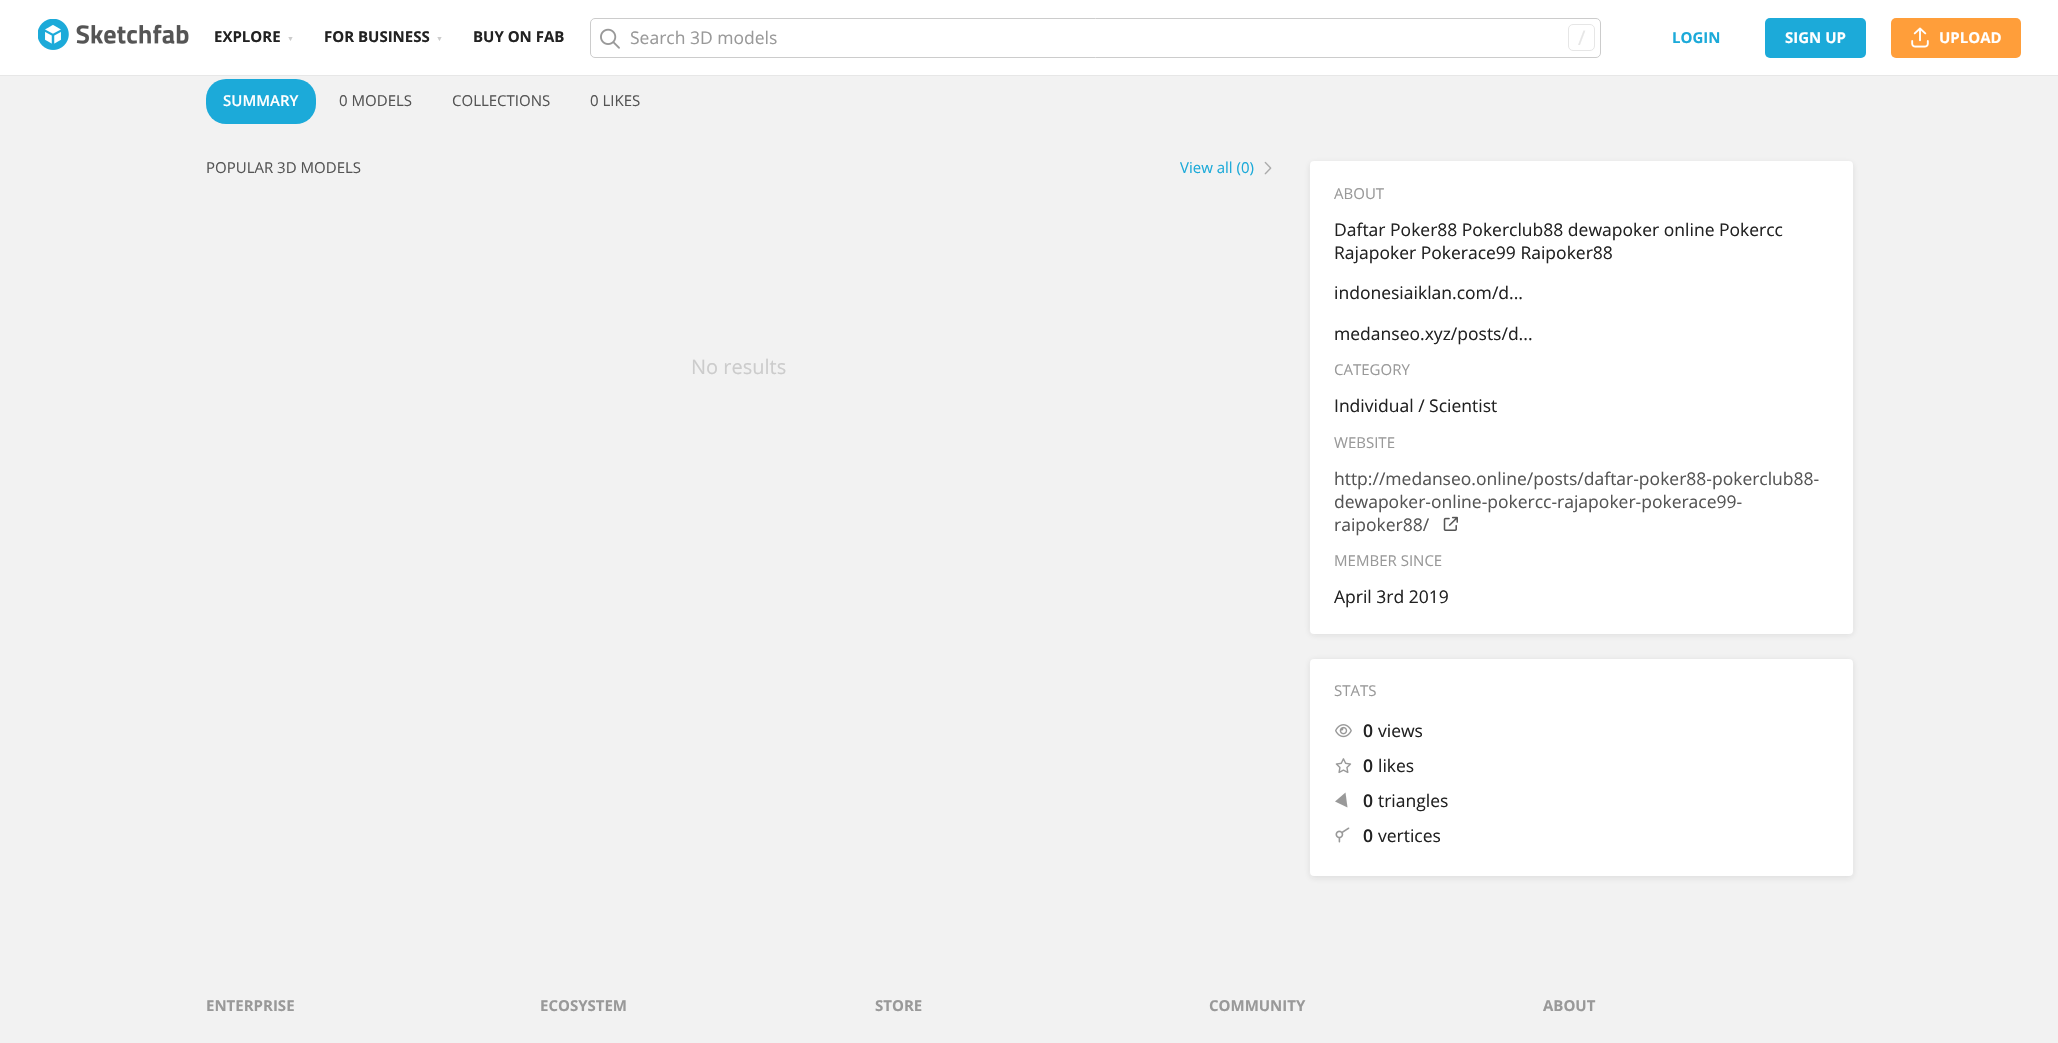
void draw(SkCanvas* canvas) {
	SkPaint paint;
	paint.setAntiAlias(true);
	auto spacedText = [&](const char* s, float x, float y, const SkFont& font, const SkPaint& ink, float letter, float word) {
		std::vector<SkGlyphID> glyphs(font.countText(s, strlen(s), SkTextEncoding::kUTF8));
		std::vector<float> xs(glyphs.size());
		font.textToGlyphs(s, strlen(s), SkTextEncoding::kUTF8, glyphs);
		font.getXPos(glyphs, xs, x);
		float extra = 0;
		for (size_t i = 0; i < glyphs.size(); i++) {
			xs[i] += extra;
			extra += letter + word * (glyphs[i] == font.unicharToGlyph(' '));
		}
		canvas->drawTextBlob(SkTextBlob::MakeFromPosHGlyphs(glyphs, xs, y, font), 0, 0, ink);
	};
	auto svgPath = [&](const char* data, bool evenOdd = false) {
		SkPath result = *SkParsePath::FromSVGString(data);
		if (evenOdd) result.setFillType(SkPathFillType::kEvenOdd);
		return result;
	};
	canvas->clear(0xfff2f2f2);
	paint.setColor(0xffffffff);
	canvas->drawRect(SkRect::MakeXYWH(0, 0, 2058, 75), paint);
	paint.setColor(0xffe7e7e7);
	canvas->drawRect(SkRect::MakeXYWH(0, 75, 2058, 1), paint);
	canvas->drawImageRect(SkImages::DeferredFromEncodedData(SkData::MakeFromFileName("img1.png")), SkRect::MakeXYWH(38, 19, 151, 31), SkSamplingOptions());
	SkFont f1(fontMgr->matchFamilyStyle("Open Sans", SkFontStyle::Bold()), 15);
	f1.setSubpixel(true);
	paint.setColor(0xff222222);
	canvas->drawString("EXPLORE", 214, 42, f1, paint);
	SkFont f2(fontMgr->matchFamilyStyle("Liberation Sans", SkFontStyle::Normal()), 7);
	f2.setSubpixel(true);
	paint.setColor(0xffcccccc);
	spacedText("▼", 287, 41, f2, paint, 6, 0);
	paint.setColor(0xff222222);
	canvas->drawString("FOR BUSINESS", 324, 42, f1, paint);
	paint.setColor(0xffcccccc);
	spacedText("▼", 436, 41, f2, paint, 6, 0);
	paint.setColor(0xff222222);
	canvas->drawString("BUY ON FAB", 473, 42, f1, paint);
	paint.setStroke(true);
	paint.setStrokeWidth(1);
	paint.setColor(0xffcccccc);
	canvas->drawRoundRect(SkRect::MakeXYWH(590.5, 18.5, 1010, 39), 4.5, 4.5, paint);
	canvas->drawImageRect(SkImages::DeferredFromEncodedData(SkData::MakeFromFileName("img2.png")), SkRect::MakeXYWH(600, 28, 20, 21), SkSamplingOptions());
	SkFont f3(fontMgr->matchFamilyStyle("Open Sans", SkFontStyle::Normal()), 17.5);
	f3.setSubpixel(true);
	paint.setStroke(false);
	paint.setColor(0xff999999);
	canvas->drawString("Search 3D models", 630, 44, f3, paint);
	paint.setStroke(true);
	paint.setColor(0xffe6e6e6);
	canvas->drawRoundRect(SkRect::MakeXYWH(1568.5, 24.5, 26, 26), 4.5, 4.5, paint);
	SkFont f4(fontMgr->matchFamilyStyle("Open Sans", SkFontStyle::Normal()), 20);
	f4.setSubpixel(true);
	paint.setStroke(false);
	canvas->drawString("/", 1578, 45, f4, paint);
	paint.setColor(0xff1caad9);
	canvas->drawString("LOGIN", 1672, 43, f1, paint);
	canvas->drawRoundRect(SkRect::MakeXYWH(1765, 18, 101, 40), 5, 5, paint);
	paint.setColor(0xffffffff);
	canvas->drawString("SIGN UP", 1785, 43, f1, paint);
	paint.setColor(0xffff9e3a);
	canvas->drawRoundRect(SkRect::MakeXYWH(1891, 18, 130, 40), 5, 5, paint);
	canvas->drawImageRect(SkImages::DeferredFromEncodedData(SkData::MakeFromFileName("img3.png")), SkRect::MakeXYWH(1911, 27, 18, 21), SkSamplingOptions());
	paint.setColor(0xffffffff);
	canvas->drawString("UPLOAD", 1939, 43, f1, paint);
	paint.setColor(0xff1caad9);
	canvas->drawRoundRect(SkRect::MakeXYWH(206, 79, 110, 45), 20, 20, paint);
	SkFont f5(fontMgr->matchFamilyStyle("Open Sans", SkFontStyle(600, SkFontStyle::kNormal_Width, SkFontStyle::kUpright_Slant)), 15);
	f5.setSubpixel(true);
	paint.setColor(0xffffffff);
	canvas->drawString("SUMMARY", 223, 106, f5, paint);
	SkFont f6(fontMgr->matchFamilyStyle("Open Sans", SkFontStyle::Normal()), 15);
	f6.setSubpixel(true);
	paint.setColor(0xff555555);
	canvas->drawString("0 MODELS", 339, 106, f6, paint);
	canvas->drawString("COLLECTIONS", 452, 106, f6, paint);
	canvas->drawString("0 LIKES", 590, 106, f6, paint);
	canvas->drawString("POPULAR 3D MODELS", 206, 173, f6, paint);
	paint.setColor(0xff1caad9);
	canvas->drawString("View all (0)", 1180, 173, f6, paint);
	canvas->drawImageRect(SkImages::DeferredFromEncodedData(SkData::MakeFromFileName("img4.png")), SkRect::MakeXYWH(1264, 161, 8, 14), SkSamplingOptions());
	paint.setColor(0xffcccccc);
	canvas->drawString("No results", 691, 374, f4, paint);
	paint.setColor(0x1a222222);
	paint.setMaskFilter(SkMaskFilter::MakeBlur(kNormal_SkBlurStyle, 3));
	canvas->drawRoundRect(SkRect::MakeXYWH(1310, 163, 543, 472), 4, 4, paint);
	paint.setMaskFilter(nullptr);
	paint.setColor(0xffffffff);
	canvas->drawRoundRect(SkRect::MakeXYWH(1310, 161, 543, 473), 4, 4, paint);
	paint.setColor(0xff999999);
	canvas->drawString("ABOUT", 1334, 199, f6, paint);
	paint.setColor(0xff222222);
	canvas->drawString("Daftar Poker88 Pokerclub88 dewapoker online Pokercc", 1334, 236, f3, paint);
	canvas->drawString("Rajapoker Pokerace99 Raipoker88", 1334, 259, f3, paint);
	canvas->drawString("indonesiaiklan.com/d...", 1334, 299, f3, paint);
	canvas->drawString("medanseo.xyz/posts/d...", 1334, 340, f3, paint);
	paint.setColor(0xff999999);
	canvas->drawString("CATEGORY", 1334, 375, f6, paint);
	paint.setColor(0xff222222);
	canvas->drawString("Individual / Scientist", 1334, 412, f3, paint);
	paint.setColor(0xff999999);
	canvas->drawString("WEBSITE", 1334, 448, f6, paint);
	paint.setColor(0xff555555);
	canvas->drawString("http://medanseo.online/posts/daftar-poker88-pokerclub88-", 1334, 485, f3, paint);
	canvas->drawString("dewapoker-online-pokercc-rajapoker-pokerace99-", 1334, 508, f3, paint);
	canvas->drawString("raipoker88/", 1334, 531, f3, paint);
	canvas->drawImageRect(SkImages::DeferredFromEncodedData(SkData::MakeFromFileName("img5.png")), SkRect::MakeXYWH(1443, 516, 15, 15), SkSamplingOptions());
	paint.setColor(0xff999999);
	canvas->drawString("MEMBER SINCE", 1334, 566, f6, paint);
	paint.setColor(0xff222222);
	canvas->drawString("April 3rd 2019", 1334, 603, f3, paint);
	paint.setColor(0x1a222222);
	paint.setMaskFilter(SkMaskFilter::MakeBlur(kNormal_SkBlurStyle, 3));
	canvas->drawRoundRect(SkRect::MakeXYWH(1310, 660, 543, 218), 4, 4, paint);
	paint.setMaskFilter(nullptr);
	paint.setColor(0xffffffff);
	canvas->drawRoundRect(SkRect::MakeXYWH(1310, 659, 543, 217), 4, 4, paint);
	paint.setColor(0xff999999);
	canvas->drawString("STATS", 1334, 696, f6, paint);
	canvas->drawImageRect(SkImages::DeferredFromEncodedData(SkData::MakeFromFileName("img6.png")), SkRect::MakeXYWH(1335, 724, 17, 14), SkSamplingOptions());
	SkFont f7(fontMgr->matchFamilyStyle("Open Sans", SkFontStyle(600, SkFontStyle::kNormal_Width, SkFontStyle::kUpright_Slant)), 17.5);
	f7.setSubpixel(true);
	paint.setColor(0xff222222);
	canvas->drawString("0", 1363, 737, f7, paint);
	canvas->drawString("views", 1378, 737, f3, paint);
	canvas->drawImageRect(SkImages::DeferredFromEncodedData(SkData::MakeFromFileName("img7.png")), SkRect::MakeXYWH(1335, 758, 17, 16), SkSamplingOptions());
	canvas->drawString("0", 1363, 772, f7, paint);
	canvas->drawString("likes", 1378, 772, f3, paint);
	paint.setColor(0xff999999);
	canvas->drawPath(svgPath("M1335 801.5L1347.5 807.5L1345.5 792.5Z"), paint);
	paint.setColor(0xff222222);
	canvas->drawString("0", 1363, 807, f7, paint);
	canvas->drawString("triangles", 1378, 807, f3, paint);
	canvas->drawImageRect(SkImages::DeferredFromEncodedData(SkData::MakeFromFileName("img8.png")), SkRect::MakeXYWH(1335, 827, 15, 16), SkSamplingOptions());
	canvas->drawString("0", 1363, 842, f7, paint);
	canvas->drawString("vertices", 1378, 842, f3, paint);
	paint.setColor(0xff999999);
	canvas->drawString("ENTERPRISE", 206, 1011, f1, paint);
	canvas->drawString("ECOSYSTEM", 540, 1011, f1, paint);
	canvas->drawString("STORE", 875, 1011, f1, paint);
	canvas->drawString("COMMUNITY", 1209, 1011, f1, paint);
	canvas->drawString("ABOUT", 1543, 1011, f1, paint);
}
